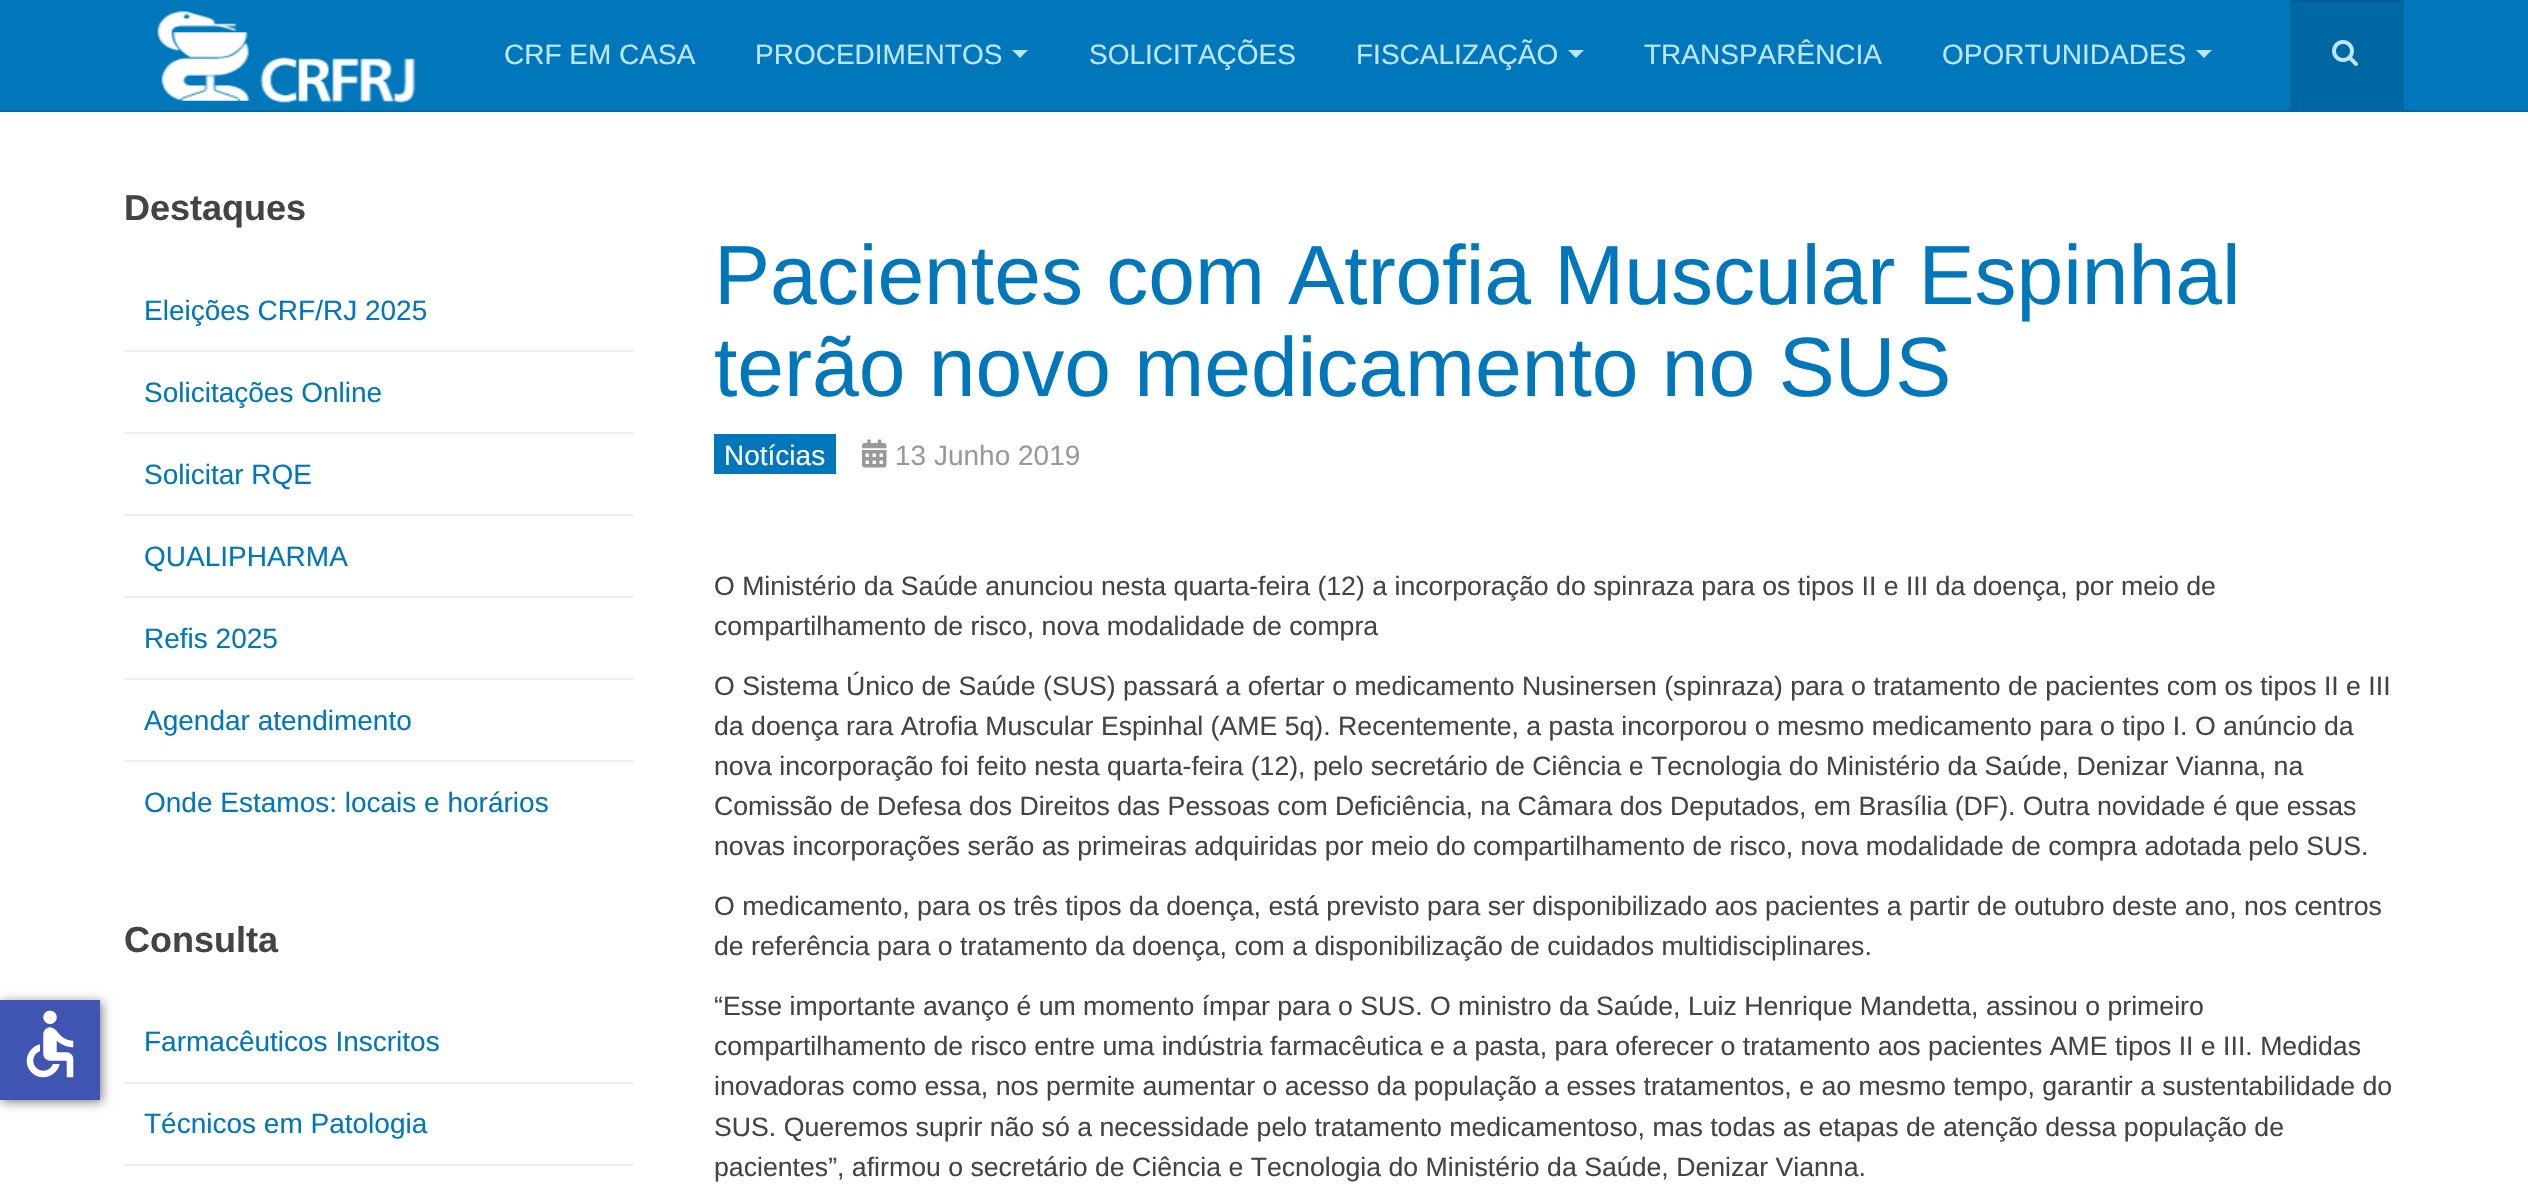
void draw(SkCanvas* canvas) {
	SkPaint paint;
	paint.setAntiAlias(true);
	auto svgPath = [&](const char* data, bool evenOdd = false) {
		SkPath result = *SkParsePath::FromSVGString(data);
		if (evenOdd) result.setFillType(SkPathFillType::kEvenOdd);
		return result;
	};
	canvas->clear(0xffffffff);
	paint.setColor(0x80000000);
	paint.setMaskFilter(SkMaskFilter::MakeBlur(kNormal_SkBlurStyle, 5));
	canvas->drawRect(SkRect::MakeXYWH(2, 1002, 100, 100), paint);
	paint.setMaskFilter(nullptr);
	paint.setColor(0xff4054b2);
	canvas->drawRect(SkRect::MakeXYWH(0, 1000, 100, 100), paint);
	canvas->drawImageRect(SkImages::DeferredFromEncodedData(SkData::MakeFromFileName("img1.png")), SkRect::MakeXYWH(26, 1010, 48, 68), SkSamplingOptions());
	paint.setColor(0xff0077bb);
	canvas->drawRect(SkRect::MakeXYWH(0, 0, 2528, 110), paint);
	paint.setColor(0xff0067a2);
	canvas->drawRect(SkRect::MakeXYWH(0, 110, 2528, 2), paint);
	canvas->drawImageRect(SkImages::DeferredFromEncodedData(SkData::MakeFromFileName("img2.png")), SkRect::MakeXYWH(157, 11, 259, 92), SkSamplingOptions());
	canvas->drawRect(SkRect::MakeXYWH(2290, 0, 114, 110), paint);
	paint.setColor(0xff005f96);
	canvas->drawRect(SkRect::MakeXYWH(2292, 0, 110, 2), paint);
	canvas->drawImageRect(SkImages::DeferredFromEncodedData(SkData::MakeFromFileName("img3.png")), SkRect::MakeXYWH(2332, 40, 26, 26), SkSamplingOptions());
	SkFont f1(fontMgr->matchFamilyStyle("Liberation Sans", SkFontStyle::Normal()), 28);
	f1.setSubpixel(true);
	paint.setColor(0xffbbe6ff);
	canvas->drawString("CRF EM CASA", 504, 64, f1, paint);
	canvas->drawString("PROCEDIMENTOS", 755, 64, f1, paint);
	canvas->drawPath(svgPath("M1012 50H1028L1020 58Z"), paint);
	canvas->drawString("SOLICITAÇÕES", 1089, 64, f1, paint);
	canvas->drawString("FISCALIZAÇÃO", 1356, 64, f1, paint);
	canvas->drawPath(svgPath("M1568 50H1584L1576 58Z"), paint);
	canvas->drawString("TRANSPARÊNCIA", 1644, 64, f1, paint);
	canvas->drawString("OPORTUNIDADES", 1942, 64, f1, paint);
	canvas->drawPath(svgPath("M2196 50H2212L2204 58Z"), paint);
	SkFont f2(fontMgr->matchFamilyStyle("Liberation Sans", SkFontStyle::Bold()), 36);
	f2.setSubpixel(true);
	paint.setColor(0xff444444);
	canvas->drawString("Destaques", 124, 220, f2, paint);
	paint.setColor(0xff0077bb);
	canvas->drawString("Eleições CRF/RJ 2025", 144, 320, f1, paint);
	paint.setColor(0xffeeeeee);
	canvas->drawRect(SkRect::MakeXYWH(124, 350, 510, 2), paint);
	paint.setColor(0xff0077bb);
	canvas->drawString("Solicitações Online", 144, 402, f1, paint);
	paint.setColor(0xffeeeeee);
	canvas->drawRect(SkRect::MakeXYWH(124, 432, 510, 2), paint);
	paint.setColor(0xff0077bb);
	canvas->drawString("Solicitar RQE", 144, 484, f1, paint);
	paint.setColor(0xffeeeeee);
	canvas->drawRect(SkRect::MakeXYWH(124, 514, 510, 2), paint);
	paint.setColor(0xff0077bb);
	canvas->drawString("QUALIPHARMA", 144, 566, f1, paint);
	paint.setColor(0xffeeeeee);
	canvas->drawRect(SkRect::MakeXYWH(124, 596, 510, 2), paint);
	paint.setColor(0xff0077bb);
	canvas->drawString("Refis 2025", 144, 648, f1, paint);
	paint.setColor(0xffeeeeee);
	canvas->drawRect(SkRect::MakeXYWH(124, 678, 510, 2), paint);
	paint.setColor(0xff0077bb);
	canvas->drawString("Agendar atendimento", 144, 730, f1, paint);
	paint.setColor(0xffeeeeee);
	canvas->drawRect(SkRect::MakeXYWH(124, 760, 510, 2), paint);
	paint.setColor(0xff0077bb);
	canvas->drawString("Onde Estamos: locais e horários", 144, 812, f1, paint);
	paint.setColor(0xff444444);
	canvas->drawString("Consulta", 124, 952, f2, paint);
	paint.setColor(0xff0077bb);
	canvas->drawString("Farmacêuticos Inscritos", 144, 1051, f1, paint);
	paint.setColor(0xffeeeeee);
	canvas->drawRect(SkRect::MakeXYWH(124, 1082, 510, 2), paint);
	paint.setColor(0xff0077bb);
	canvas->drawString("Técnicos em Patologia", 144, 1133, f1, paint);
	paint.setColor(0xffeeeeee);
	canvas->drawRect(SkRect::MakeXYWH(124, 1164, 510, 2), paint);
	SkFont f3(fontMgr->matchFamilyStyle("Liberation Sans", SkFontStyle::Normal()), 84);
	f3.setSubpixel(true);
	paint.setColor(0xff0077bb);
	canvas->drawString("Pacientes com Atrofia Muscular Espinhal", 714, 304, f3, paint);
	canvas->drawString("terão novo medicamento no SUS", 714, 396, f3, paint);
	canvas->drawRect(SkRect::MakeXYWH(714, 434, 122, 40), paint);
	paint.setColor(0xffffffff);
	canvas->drawString("Notícias", 724, 465, f1, paint);
	canvas->drawImageRect(SkImages::DeferredFromEncodedData(SkData::MakeFromFileName("img4.png")), SkRect::MakeXYWH(862, 439, 25, 29), SkSamplingOptions());
	paint.setColor(0xff999999);
	canvas->drawString("13 Junho 2019", 895, 465, f1, paint);
	SkFont f4(fontMgr->matchFamilyStyle("Liberation Sans", SkFontStyle::Normal()), 26.67);
	f4.setSubpixel(true);
	paint.setColor(0xff444444);
	canvas->drawString("O Ministério da Saúde anunciou nesta quarta-feira (12) a incorporação do spinraza para os tipos II e III da doença, por meio de", 714, 595, f4, paint);
	canvas->drawString("compartilhamento de risco, nova modalidade de compra", 714, 635, f4, paint);
	canvas->drawString("O Sistema Único de Saúde (SUS) passará a ofertar o medicamento Nusinersen (spinraza) para o tratamento de pacientes com os tipos II e III", 714, 695, f4, paint);
	canvas->drawString("da doença rara Atrofia Muscular Espinhal (AME 5q). Recentemente, a pasta incorporou o mesmo medicamento para o tipo I. O anúncio da", 714, 735, f4, paint);
	canvas->drawString("nova incorporação foi feito nesta quarta-feira (12), pelo secretário de Ciência e Tecnologia do Ministério da Saúde, Denizar Vianna, na", 714, 775, f4, paint);
	canvas->drawString("Comissão de Defesa dos Direitos das Pessoas com Deficiência, na Câmara dos Deputados, em Brasília (DF). Outra novidade é que essas", 714, 815, f4, paint);
	canvas->drawString("novas incorporações serão as primeiras adquiridas por meio do compartilhamento de risco, nova modalidade de compra adotada pelo SUS.", 714, 855, f4, paint);
	canvas->drawString("O medicamento, para os três tipos da doença, está previsto para ser disponibilizado aos pacientes a partir de outubro deste ano, nos centros", 714, 915, f4, paint);
	canvas->drawString("de referência para o tratamento da doença, com a disponibilização de cuidados multidisciplinares.", 714, 955, f4, paint);
	canvas->drawString("“Esse importante avanço é um momento ímpar para o SUS. O ministro da Saúde, Luiz Henrique Mandetta, assinou o primeiro", 714, 1015, f4, paint);
	canvas->drawString("compartilhamento de risco entre uma indústria farmacêutica e a pasta, para oferecer o tratamento aos pacientes AME tipos II e III. Medidas", 714, 1055, f4, paint);
	canvas->drawString("inovadoras como essa, nos permite aumentar o acesso da população a esses tratamentos, e ao mesmo tempo, garantir a sustentabilidade do", 714, 1095, f4, paint);
	canvas->drawString("SUS. Queremos suprir não só a necessidade pelo tratamento medicamentoso, mas todas as etapas de atenção dessa população de", 714, 1136, f4, paint);
	canvas->drawString("pacientes”, afirmou o secretário de Ciência e Tecnologia do Ministério da Saúde, Denizar Vianna.", 714, 1176, f4, paint);
}
